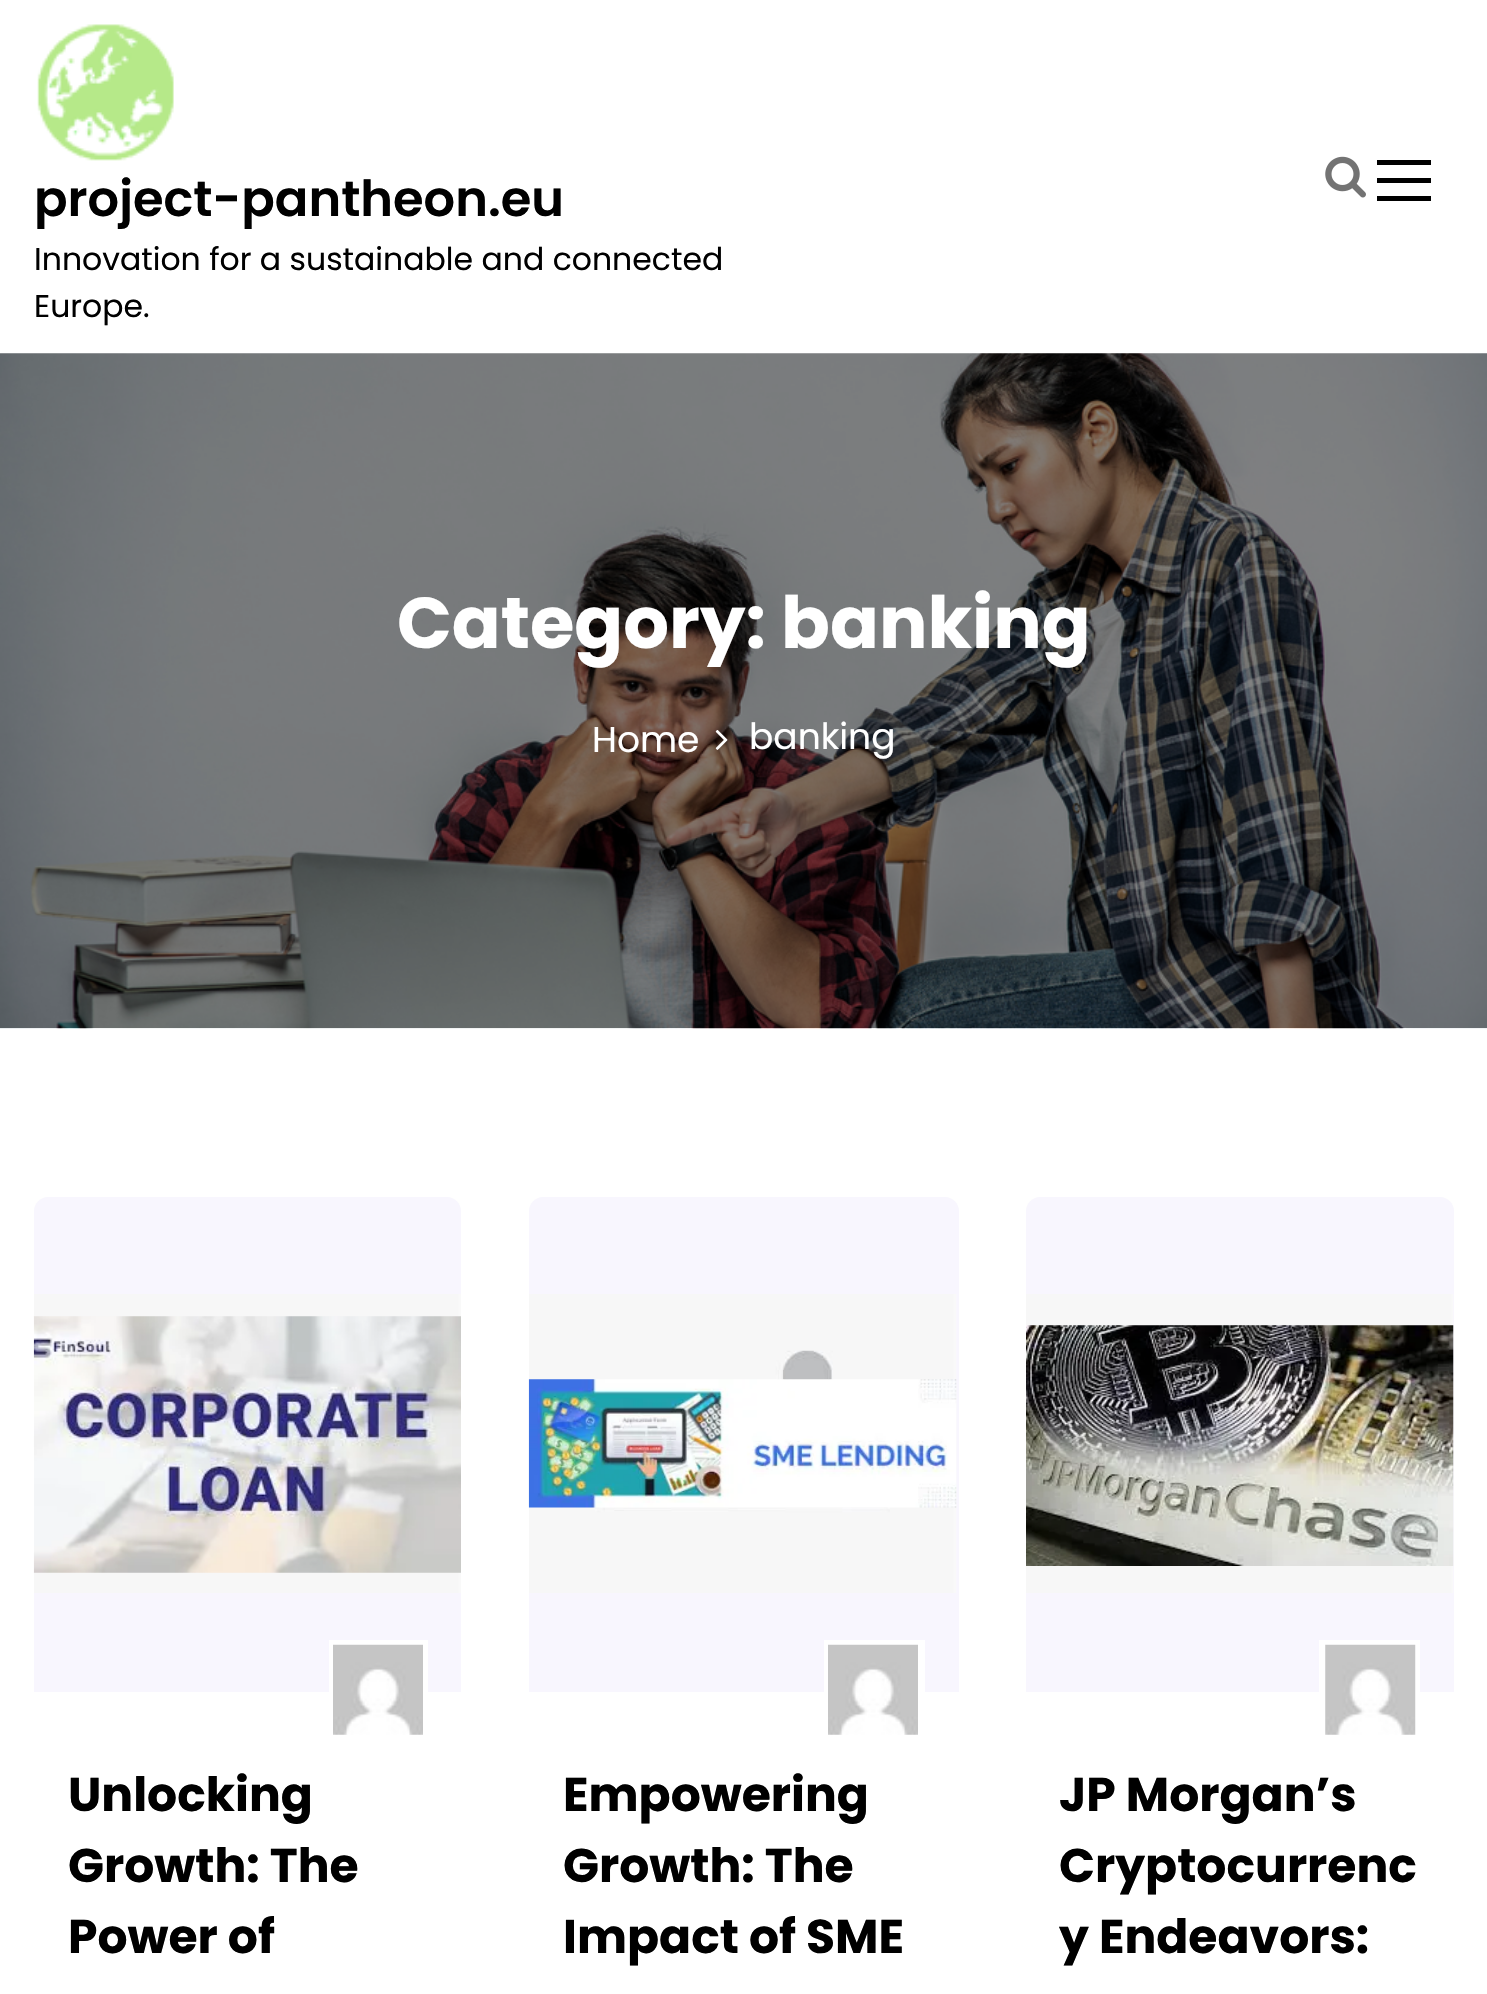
void draw(SkCanvas* canvas) {
	SkPaint paint;
	paint.setAntiAlias(true);
	auto svgPath = [&](const char* data, bool evenOdd = false) {
		SkPath result = *SkParsePath::FromSVGString(data);
		if (evenOdd) result.setFillType(SkPathFillType::kEvenOdd);
		return result;
	};
	canvas->clear(0xffffffff);
	canvas->drawImageRect(SkImages::DeferredFromEncodedData(SkData::MakeFromFileName("img1.png")), SkRect::MakeXYWH(37, 24, 137, 137), SkSamplingOptions());
	SkFont f1(fontMgr->matchFamilyStyle("Poppins", SkFontStyle(600, SkFontStyle::kNormal_Width, SkFontStyle::kUpright_Slant)), 49.5);
	f1.setSubpixel(true);
	paint.setColor(0xff000000);
	canvas->drawString("project-pantheon.eu", 34, 216, f1, paint);
	SkFont f2(fontMgr->matchFamilyStyle("Poppins", SkFontStyle::Normal()), 31.5);
	f2.setSubpixel(true);
	canvas->drawString("Innovation for a sustainable and connected", 34, 270, f2, paint);
	canvas->drawString("Europe.", 34, 317, f2, paint);
	canvas->drawImageRect(SkImages::DeferredFromEncodedData(SkData::MakeFromFileName("img2.png")), SkRect::MakeXYWH(1325, 156, 41, 42), SkSamplingOptions());
	canvas->drawRect(SkRect::MakeXYWH(1377, 160, 54, 5), paint);
	canvas->drawRect(SkRect::MakeXYWH(1377, 178, 54, 5), paint);
	canvas->drawRect(SkRect::MakeXYWH(1377, 196, 54, 5), paint);
	canvas->drawImageRect(SkImages::DeferredFromEncodedData(SkData::MakeFromFileName("img3.png")), SkRect::MakeXYWH(0, 353, 1487, 676), SkSamplingOptions());
	SkFont f3(fontMgr->matchFamilyStyle("Poppins", SkFontStyle::Bold()), 72);
	f3.setSubpixel(true);
	paint.setColor(0xffffffff);
	canvas->drawString("Category: banking", 397, 648, f3, paint);
	SkFont f4(fontMgr->matchFamilyStyle("Poppins", SkFontStyle::Normal()), 36);
	f4.setSubpixel(true);
	canvas->drawString("Home", 592, 752, f4, paint);
	canvas->drawImageRect(SkImages::DeferredFromEncodedData(SkData::MakeFromFileName("img4.png")), SkRect::MakeXYWH(715, 730, 13, 20), SkSamplingOptions());
	canvas->drawString("banking", 749, 749, f4, paint);
	paint.setColor(0xfff8f6fe);
	canvas->drawPath(svgPath("M48 1197H447C454.5 1197 461 1203.5 461 1211V1692H34V1211C34 1203.5 40.5 1197 48 1197Z"), paint);
	canvas->drawImageRect(SkImages::DeferredFromEncodedData(SkData::MakeFromFileName("img5.png")), SkRect::MakeXYWH(33, 1294, 428, 299), SkSamplingOptions());
	paint.setColor(0xffffffff);
	canvas->drawRect(SkRect::MakeXYWH(329, 1640, 99, 52), paint);
	canvas->drawImageRect(SkImages::DeferredFromEncodedData(SkData::MakeFromFileName("img6.png")), SkRect::MakeXYWH(333, 1644, 90, 91), SkSamplingOptions());
	SkFont f5(fontMgr->matchFamilyStyle("Poppins", SkFontStyle::Bold()), 47.25);
	f5.setSubpixel(true);
	paint.setColor(0xff000000);
	canvas->drawString("Unlocking", 68, 1811, f5, paint);
	canvas->drawString("Growth: The", 68, 1882, f5, paint);
	canvas->drawString("Power of", 68, 1953, f5, paint);
	paint.setColor(0xfff8f6fe);
	canvas->drawPath(svgPath("M543 1197H945C952.5 1197 959 1203.5 959 1211V1692H529V1211C529 1203.5 535.5 1197 543 1197Z"), paint);
	canvas->drawImageRect(SkImages::DeferredFromEncodedData(SkData::MakeFromFileName("img7.png")), SkRect::MakeXYWH(528, 1294, 429, 299), SkSamplingOptions());
	paint.setColor(0xffffffff);
	canvas->drawRect(SkRect::MakeXYWH(824, 1640, 101, 52), paint);
	canvas->drawImageRect(SkImages::DeferredFromEncodedData(SkData::MakeFromFileName("img6.png")), SkRect::MakeXYWH(828, 1644, 90, 91), SkSamplingOptions());
	paint.setColor(0xff000000);
	canvas->drawString("Empowering", 563, 1811, f5, paint);
	canvas->drawString("Growth: The", 563, 1882, f5, paint);
	canvas->drawString("Impact of SME", 563, 1953, f5, paint);
	paint.setColor(0xfff8f6fe);
	canvas->drawPath(svgPath("M1040 1197H1440C1447.5 1197 1454 1203.5 1454 1211V1692H1026V1211C1026 1203.5 1032.5 1197 1040 1197Z"), paint);
	canvas->drawImageRect(SkImages::DeferredFromEncodedData(SkData::MakeFromFileName("img8.png")), SkRect::MakeXYWH(1026, 1294, 428, 299), SkSamplingOptions());
	paint.setColor(0xffffffff);
	canvas->drawRect(SkRect::MakeXYWH(1319, 1640, 101, 52), paint);
	canvas->drawImageRect(SkImages::DeferredFromEncodedData(SkData::MakeFromFileName("img9.png")), SkRect::MakeXYWH(1325, 1644, 91, 91), SkSamplingOptions());
	paint.setColor(0xff000000);
	canvas->drawString("JP Morgan’s", 1059, 1811, f5, paint);
	canvas->drawString("Cryptocurrenc", 1059, 1882, f5, paint);
	canvas->drawString("y Endeavors:", 1059, 1953, f5, paint);
}
